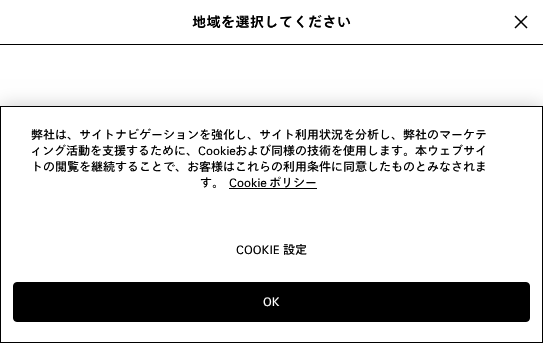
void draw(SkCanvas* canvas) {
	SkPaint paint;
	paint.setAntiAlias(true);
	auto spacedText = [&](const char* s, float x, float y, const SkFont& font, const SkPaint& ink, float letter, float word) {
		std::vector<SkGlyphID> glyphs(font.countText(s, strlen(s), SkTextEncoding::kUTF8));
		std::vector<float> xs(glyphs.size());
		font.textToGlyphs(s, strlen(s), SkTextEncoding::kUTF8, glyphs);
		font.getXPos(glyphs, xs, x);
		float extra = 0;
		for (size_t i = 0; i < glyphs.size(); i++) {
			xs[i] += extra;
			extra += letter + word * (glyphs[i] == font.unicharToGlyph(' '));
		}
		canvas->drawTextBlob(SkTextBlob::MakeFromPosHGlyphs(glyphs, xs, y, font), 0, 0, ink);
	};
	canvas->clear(0xffffffff);
	paint.setColor(0xff000000);
	canvas->drawRect(SkRect::MakeXYWH(0, 44, 543, 1), paint);
	SkFont f1(fontMgr->matchFamilyStyle("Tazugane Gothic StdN", SkFontStyle::Bold()), 14);
	f1.setSubpixel(true);
	spacedText("地域を選択してください", 192, 27, f1, paint, 0.5, 0);
	canvas->drawImageRect(SkImages::DeferredFromEncodedData(SkData::MakeFromFileName("img1.png")), SkRect::MakeXYWH(514, 15, 14, 14), SkSamplingOptions());
	paint.setColor(0x33000000);
	paint.setMaskFilter(SkMaskFilter::MakeBlur(kNormal_SkBlurStyle, 9));
	canvas->drawRect(SkRect::MakeXYWH(0, 106, 543, 237), paint);
	paint.setMaskFilter(nullptr);
	paint.setColor(0xffffffff);
	canvas->drawRect(SkRect::MakeXYWH(0.5, 106.5, 542, 236), paint);
	paint.setStroke(true);
	paint.setStrokeWidth(1);
	paint.setColor(0xff000000);
	canvas->drawRect(SkRect::MakeXYWH(0.5, 106.5, 542, 236), paint);
	SkFont f2(fontMgr->matchFamilyStyle("Tazugane Gothic StdN", SkFontStyle::Normal()), 12);
	f2.setSubpixel(true);
	paint.setStroke(false);
	canvas->drawString("弊社は、サイトナビゲーションを強化し、サイト利用状況を分析し、弊社のマーケテ", 31, 139, f2, paint);
	canvas->drawString("ィング活動を支援するために、", 30, 155, f2, paint);
	SkFont f3(fontMgr->matchFamilyStyle("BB", SkFontStyle::Normal()), 12);
	f3.setSubpixel(true);
	canvas->drawString("Cookie", 198, 155, f3, paint);
	canvas->drawString("および同様の技術を使用します。本ウェブサイ", 235, 155, f2, paint);
	canvas->drawString("トの閲覧を継続することで、お客様はこれらの利用条件に同意したものとみなされま", 31, 171, f2, paint);
	canvas->drawString("す。", 200, 187, f2, paint);
	canvas->drawString("Cookie", 229, 187, f3, paint);
	canvas->drawRect(SkRect::MakeXYWH(229, 188, 88, 1), paint);
	canvas->drawString("ポリシー", 269, 187, f2, paint);
	canvas->drawString("COOKIE", 236, 254, f3, paint);
	canvas->drawString("設定", 283, 254, f2, paint);
	canvas->drawRoundRect(SkRect::MakeXYWH(13.5, 282.5, 516, 39), 3.5, 3.5, paint);
	paint.setStroke(true);
	canvas->drawRoundRect(SkRect::MakeXYWH(13.5, 282.5, 516, 39), 3.5, 3.5, paint);
	paint.setStroke(false);
	paint.setColor(0xffffffff);
	canvas->drawString("OK", 263, 306, f3, paint);
}
